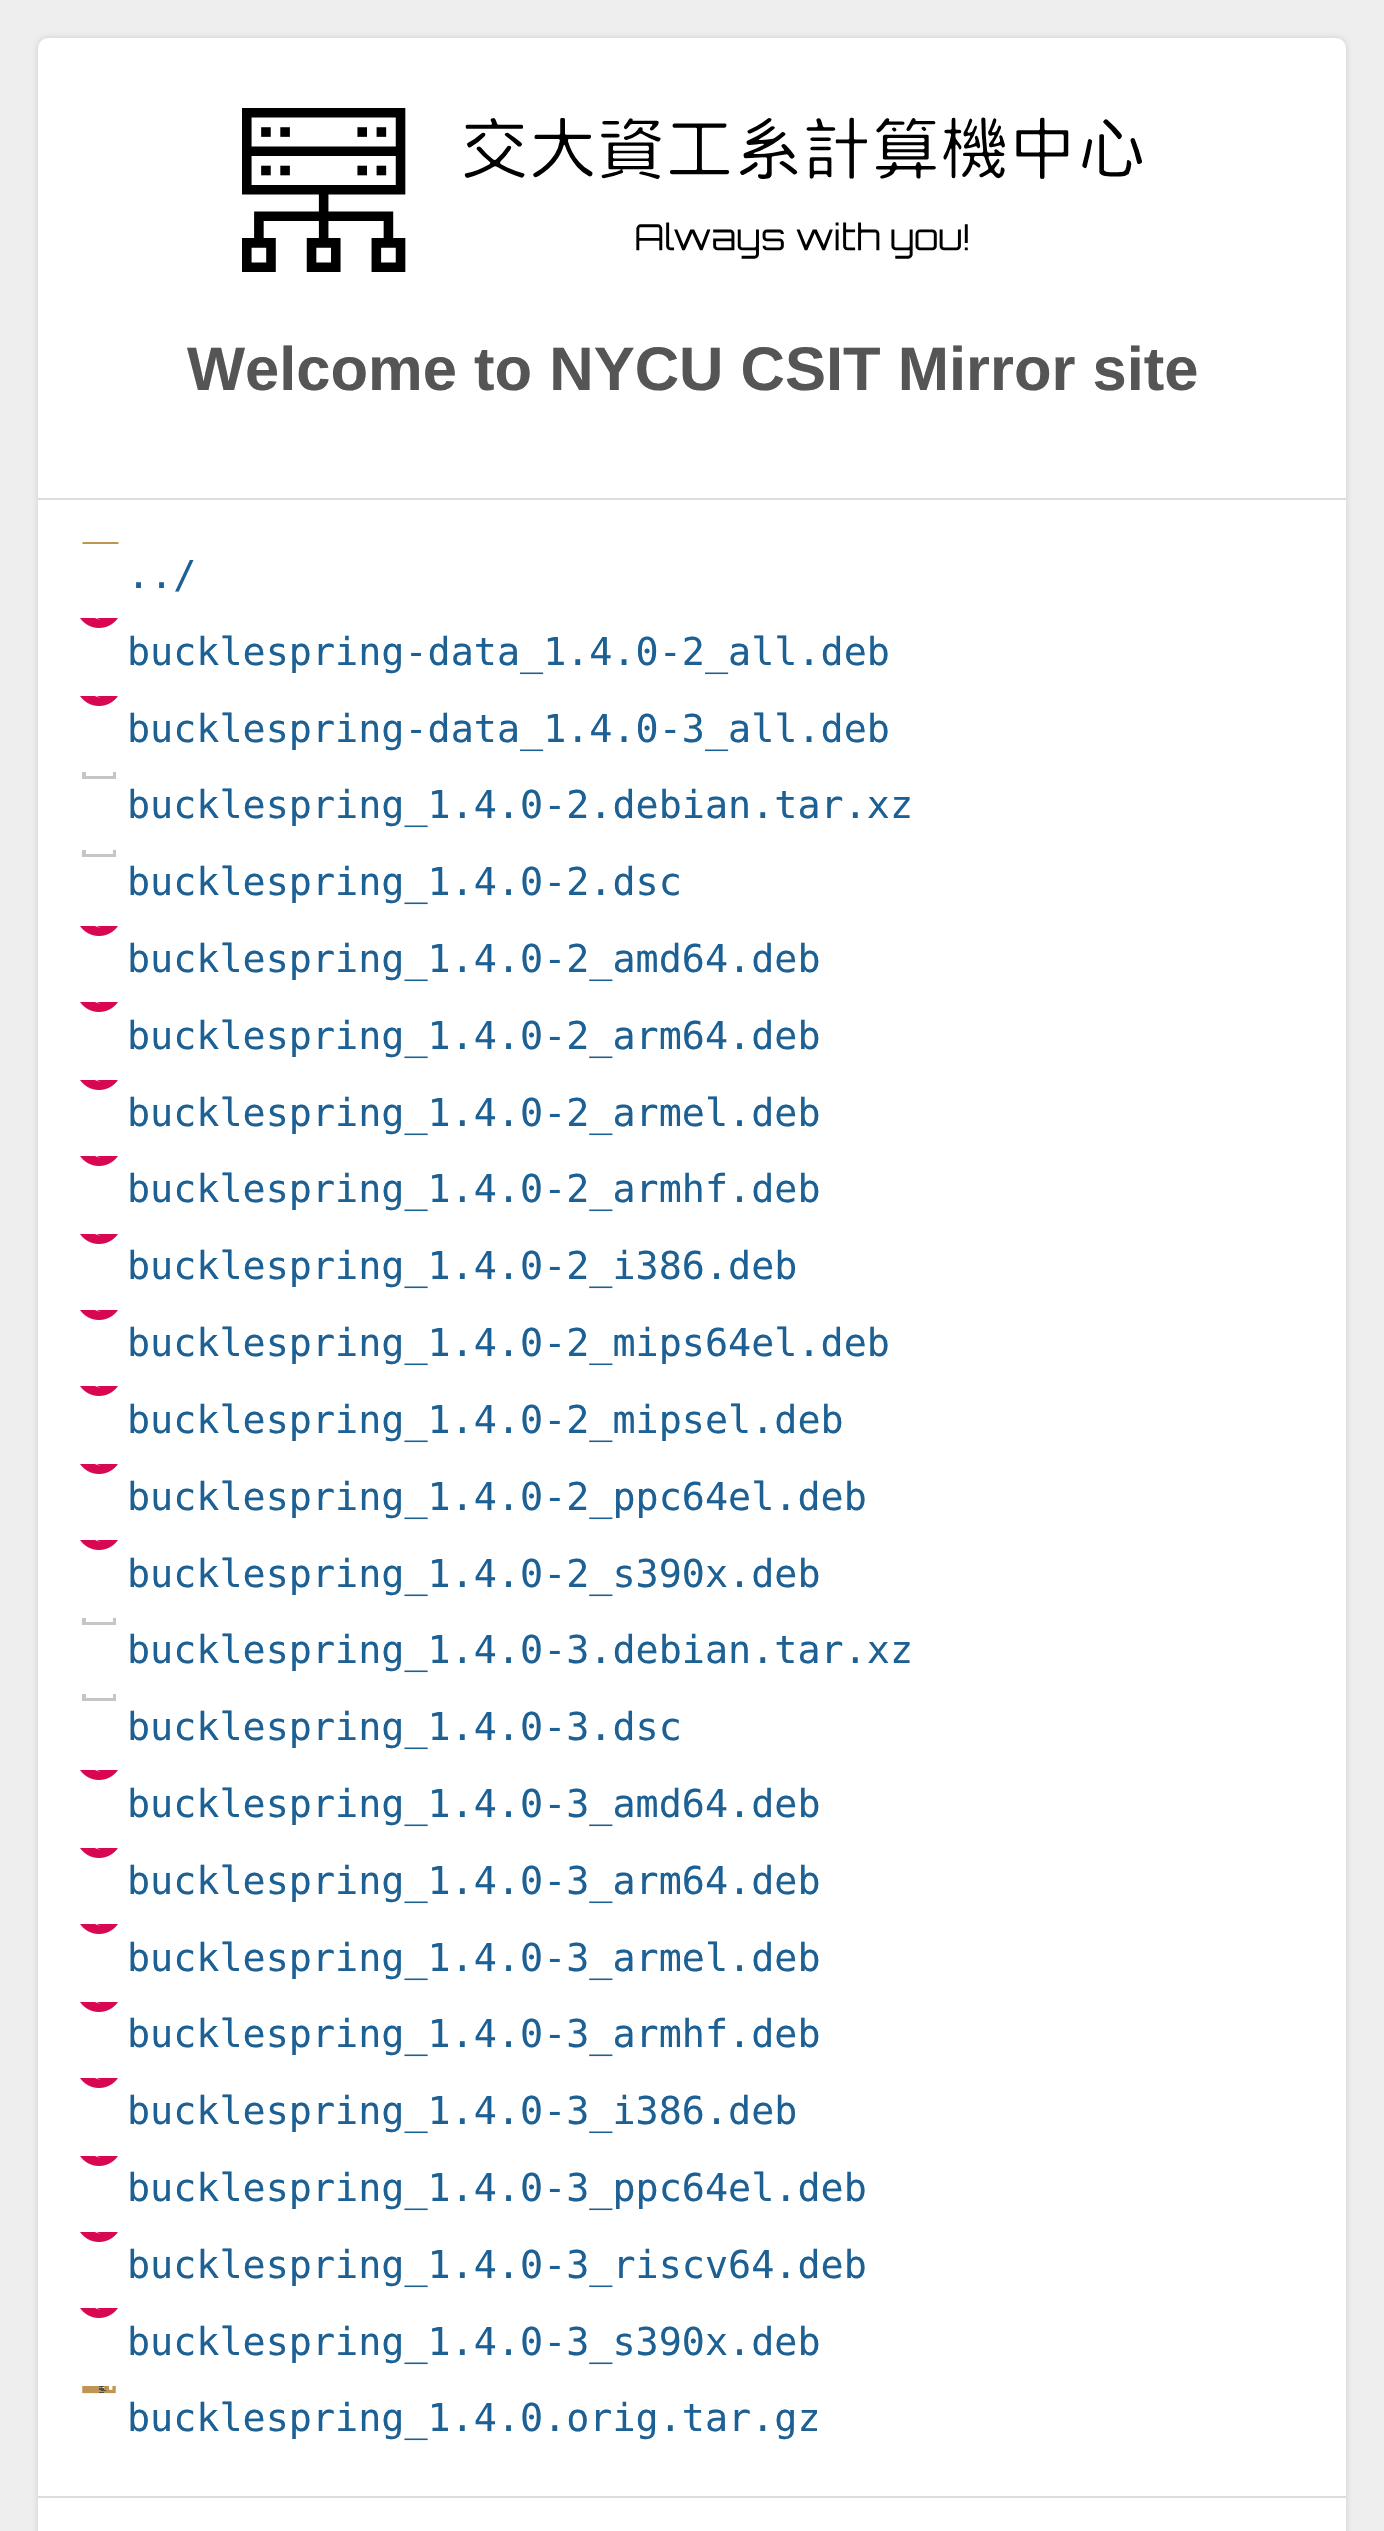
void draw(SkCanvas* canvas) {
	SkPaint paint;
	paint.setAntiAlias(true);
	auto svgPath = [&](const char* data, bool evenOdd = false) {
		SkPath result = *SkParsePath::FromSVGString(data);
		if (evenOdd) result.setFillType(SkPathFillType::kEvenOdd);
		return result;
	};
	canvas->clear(0xffeeeeee);
	paint.setColor(0xffcccccc);
	paint.setMaskFilter(SkMaskFilter::MakeBlur(kNormal_SkBlurStyle, 3));
	canvas->drawRoundRect(SkRect::MakeXYWH(38, 38, 1308, 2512), 10, 10, paint);
	paint.setMaskFilter(nullptr);
	paint.setColor(0xffffffff);
	canvas->drawRoundRect(SkRect::MakeXYWH(38, 38, 1308, 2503), 10, 10, paint);
	canvas->drawImageRect(SkImages::DeferredFromEncodedData(SkData::MakeFromFileName("img1.png")), SkRect::MakeXYWH(242, 108, 900, 164), SkSamplingOptions());
	SkFont f1(fontMgr->matchFamilyStyle("Liberation Sans", SkFontStyle::Bold()), 61.5);
	f1.setSubpixel(true);
	paint.setColor(0xff555555);
	canvas->drawString("Welcome to NYCU CSIT Mirror site", 187, 390, f1, paint);
	paint.setColor(0xffdddddd);
	canvas->drawRect(SkRect::MakeXYWH(38, 498, 1308, 2), paint);
	SkFont f2(fontMgr->matchFamilyStyle("DejaVu Sans Mono", SkFontStyle::Normal()), 38.4);
	f2.setSubpixel(true);
	paint.setColor(0xff1c6094);
	canvas->drawString("../", 127, 588, f2, paint);
	canvas->save();
	canvas->clipRect(SkRect::MakeXYWH(76, 542, 46, 10));
	paint.setColor(0xffc09553);
	canvas->drawPath(svgPath("M115.5 514H102L99 520H82.5V544H118.5V514ZM115.5 520H103.5L105.5 517H115.5Z"), paint);
	canvas->restore();
	canvas->drawImageRect(SkImages::DeferredFromEncodedData(SkData::MakeFromFileName("img2.png")), SkRect::MakeXYWH(80, 618, 38, 10), SkSamplingOptions());
	paint.setColor(0xff1c6094);
	canvas->drawString("bucklespring-data_1.4.0-2_all.deb", 127, 665, f2, paint);
	canvas->drawImageRect(SkImages::DeferredFromEncodedData(SkData::MakeFromFileName("img2.png")), SkRect::MakeXYWH(80, 696, 38, 10), SkSamplingOptions());
	canvas->drawString("bucklespring-data_1.4.0-3_all.deb", 127, 742, f2, paint);
	canvas->drawString("bucklespring_1.4.0-2.debian.tar.xz", 127, 818, f2, paint);
	canvas->save();
	canvas->clipRect(SkRect::MakeXYWH(76, 772, 46, 10));
	paint.setColor(0xffc5c5c5);
	canvas->drawPath(svgPath("M106 739H82V779H116V749ZM112 776H86V742H103V752H113V776Z"), paint);
	canvas->restore();
	paint.setColor(0xff1c6094);
	canvas->drawString("bucklespring_1.4.0-2.dsc", 127, 895, f2, paint);
	canvas->save();
	canvas->clipRect(SkRect::MakeXYWH(76, 850, 46, 10));
	paint.setColor(0xffc5c5c5);
	canvas->drawPath(svgPath("M106 817H82V857H116V827ZM112 854H86V820H103V830H113V854Z"), paint);
	canvas->restore();
	canvas->drawImageRect(SkImages::DeferredFromEncodedData(SkData::MakeFromFileName("img2.png")), SkRect::MakeXYWH(80, 926, 38, 10), SkSamplingOptions());
	paint.setColor(0xff1c6094);
	canvas->drawString("bucklespring_1.4.0-2_amd64.deb", 127, 972, f2, paint);
	canvas->drawImageRect(SkImages::DeferredFromEncodedData(SkData::MakeFromFileName("img2.png")), SkRect::MakeXYWH(80, 1002, 38, 10), SkSamplingOptions());
	canvas->drawString("bucklespring_1.4.0-2_arm64.deb", 127, 1049, f2, paint);
	canvas->drawImageRect(SkImages::DeferredFromEncodedData(SkData::MakeFromFileName("img2.png")), SkRect::MakeXYWH(80, 1080, 38, 10), SkSamplingOptions());
	canvas->drawString("bucklespring_1.4.0-2_armel.deb", 127, 1126, f2, paint);
	canvas->drawImageRect(SkImages::DeferredFromEncodedData(SkData::MakeFromFileName("img2.png")), SkRect::MakeXYWH(80, 1156, 38, 10), SkSamplingOptions());
	canvas->drawString("bucklespring_1.4.0-2_armhf.deb", 127, 1202, f2, paint);
	canvas->drawImageRect(SkImages::DeferredFromEncodedData(SkData::MakeFromFileName("img2.png")), SkRect::MakeXYWH(80, 1234, 38, 10), SkSamplingOptions());
	canvas->drawString("bucklespring_1.4.0-2_i386.deb", 127, 1279, f2, paint);
	canvas->drawImageRect(SkImages::DeferredFromEncodedData(SkData::MakeFromFileName("img2.png")), SkRect::MakeXYWH(80, 1310, 38, 10), SkSamplingOptions());
	canvas->drawString("bucklespring_1.4.0-2_mips64el.deb", 127, 1356, f2, paint);
	canvas->drawImageRect(SkImages::DeferredFromEncodedData(SkData::MakeFromFileName("img2.png")), SkRect::MakeXYWH(80, 1386, 38, 10), SkSamplingOptions());
	canvas->drawString("bucklespring_1.4.0-2_mipsel.deb", 127, 1433, f2, paint);
	canvas->drawImageRect(SkImages::DeferredFromEncodedData(SkData::MakeFromFileName("img2.png")), SkRect::MakeXYWH(80, 1464, 38, 10), SkSamplingOptions());
	canvas->drawString("bucklespring_1.4.0-2_ppc64el.deb", 127, 1510, f2, paint);
	canvas->drawImageRect(SkImages::DeferredFromEncodedData(SkData::MakeFromFileName("img2.png")), SkRect::MakeXYWH(80, 1540, 38, 10), SkSamplingOptions());
	canvas->drawString("bucklespring_1.4.0-2_s390x.deb", 127, 1587, f2, paint);
	canvas->drawString("bucklespring_1.4.0-3.debian.tar.xz", 127, 1663, f2, paint);
	canvas->save();
	canvas->clipRect(SkRect::MakeXYWH(76, 1618, 46, 10));
	paint.setColor(0xffc5c5c5);
	canvas->drawPath(svgPath("M106 1585H82V1625H116V1595ZM112 1622H86V1588H103V1598H113V1622Z"), paint);
	canvas->restore();
	paint.setColor(0xff1c6094);
	canvas->drawString("bucklespring_1.4.0-3.dsc", 127, 1740, f2, paint);
	canvas->save();
	canvas->clipRect(SkRect::MakeXYWH(76, 1694, 46, 10));
	paint.setColor(0xffc5c5c5);
	canvas->drawPath(svgPath("M106 1661H82V1701H116V1671ZM112 1698H86V1664H103V1674H113V1698Z"), paint);
	canvas->restore();
	canvas->drawImageRect(SkImages::DeferredFromEncodedData(SkData::MakeFromFileName("img2.png")), SkRect::MakeXYWH(80, 1770, 38, 10), SkSamplingOptions());
	paint.setColor(0xff1c6094);
	canvas->drawString("bucklespring_1.4.0-3_amd64.deb", 127, 1817, f2, paint);
	canvas->drawImageRect(SkImages::DeferredFromEncodedData(SkData::MakeFromFileName("img2.png")), SkRect::MakeXYWH(80, 1848, 38, 10), SkSamplingOptions());
	canvas->drawString("bucklespring_1.4.0-3_arm64.deb", 127, 1894, f2, paint);
	canvas->drawImageRect(SkImages::DeferredFromEncodedData(SkData::MakeFromFileName("img2.png")), SkRect::MakeXYWH(80, 1924, 38, 10), SkSamplingOptions());
	canvas->drawString("bucklespring_1.4.0-3_armel.deb", 127, 1971, f2, paint);
	canvas->drawImageRect(SkImages::DeferredFromEncodedData(SkData::MakeFromFileName("img2.png")), SkRect::MakeXYWH(80, 2002, 38, 10), SkSamplingOptions());
	canvas->drawString("bucklespring_1.4.0-3_armhf.deb", 127, 2047, f2, paint);
	canvas->drawImageRect(SkImages::DeferredFromEncodedData(SkData::MakeFromFileName("img2.png")), SkRect::MakeXYWH(80, 2078, 38, 10), SkSamplingOptions());
	canvas->drawString("bucklespring_1.4.0-3_i386.deb", 127, 2124, f2, paint);
	canvas->drawImageRect(SkImages::DeferredFromEncodedData(SkData::MakeFromFileName("img2.png")), SkRect::MakeXYWH(80, 2156, 38, 10), SkSamplingOptions());
	canvas->drawString("bucklespring_1.4.0-3_ppc64el.deb", 127, 2201, f2, paint);
	canvas->drawImageRect(SkImages::DeferredFromEncodedData(SkData::MakeFromFileName("img2.png")), SkRect::MakeXYWH(80, 2232, 38, 10), SkSamplingOptions());
	canvas->drawString("bucklespring_1.4.0-3_riscv64.deb", 127, 2278, f2, paint);
	canvas->drawImageRect(SkImages::DeferredFromEncodedData(SkData::MakeFromFileName("img2.png")), SkRect::MakeXYWH(80, 2308, 38, 10), SkSamplingOptions());
	canvas->drawString("bucklespring_1.4.0-3_s390x.deb", 127, 2355, f2, paint);
	canvas->drawImageRect(SkImages::DeferredFromEncodedData(SkData::MakeFromFileName("img3.png")), SkRect::MakeXYWH(82, 2386, 34, 8), SkSamplingOptions());
	canvas->drawString("bucklespring_1.4.0.orig.tar.gz", 127, 2431, f2, paint);
	paint.setColor(0xffdddddd);
	canvas->drawRect(SkRect::MakeXYWH(38, 2496, 1308, 2), paint);
}
